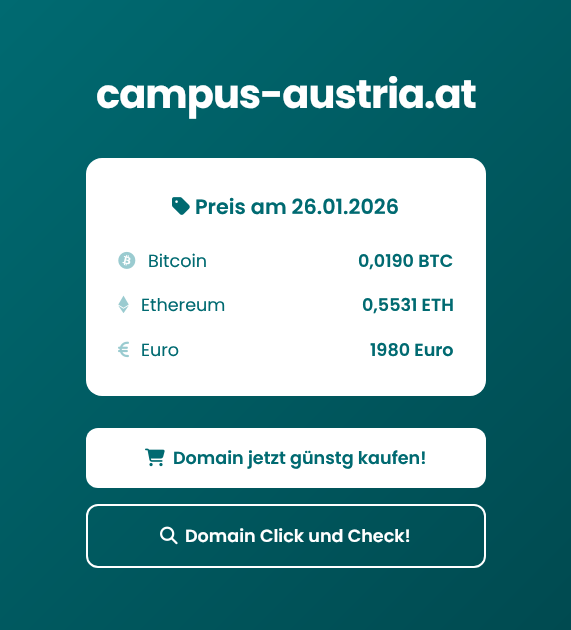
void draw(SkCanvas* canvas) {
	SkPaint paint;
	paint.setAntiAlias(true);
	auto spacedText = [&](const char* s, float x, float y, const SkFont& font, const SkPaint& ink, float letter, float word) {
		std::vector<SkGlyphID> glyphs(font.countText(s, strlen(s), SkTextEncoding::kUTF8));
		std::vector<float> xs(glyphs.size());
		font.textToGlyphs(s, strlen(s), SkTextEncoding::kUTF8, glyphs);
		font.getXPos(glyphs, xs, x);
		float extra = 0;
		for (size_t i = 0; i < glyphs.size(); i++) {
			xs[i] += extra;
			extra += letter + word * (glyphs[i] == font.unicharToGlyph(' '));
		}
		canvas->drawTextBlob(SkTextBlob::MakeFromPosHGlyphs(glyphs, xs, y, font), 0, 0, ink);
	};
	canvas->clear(0xffffffff);
	{
		const SkColor colors[] = {0xff006a71, 0xff004a50};
		const float stops[] = {0, 1};
		const SkPoint ends[] = {{-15, 15}, {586, 615}};
		paint.setShader(SkGradientShader::MakeLinear(ends, colors, stops, 2, SkTileMode::kClamp));
		paint.setAlpha(255);
	}
	canvas->drawRect(SkRect::MakeXYWH(0, 0, 571, 630), paint);
	SkFont f1(fontMgr->matchFamilyStyle("Poppins", SkFontStyle::Bold()), 40);
	f1.setSubpixel(true);
	paint.setShader(nullptr);
	paint.setColor(0xffffffff);
	spacedText("campus-austria.at", 96, 108, f1, paint, -1, 0);
	canvas->drawRoundRect(SkRect::MakeXYWH(86, 158, 400, 238), 16, 16, paint);
	canvas->drawImageRect(SkImages::DeferredFromEncodedData(SkData::MakeFromFileName("img1.png")), SkRect::MakeXYWH(172, 197, 18, 18), SkSamplingOptions());
	SkFont f2(fontMgr->matchFamilyStyle("Poppins", SkFontStyle(600, SkFontStyle::kNormal_Width, SkFontStyle::kUpright_Slant)), 20.75);
	f2.setSubpixel(true);
	paint.setColor(0xff006a71);
	canvas->drawString("Preis am 26.01.2026", 195, 214, f2, paint);
	canvas->drawImageRect(SkImages::DeferredFromEncodedData(SkData::MakeFromFileName("img2.png")), SkRect::MakeXYWH(118, 251, 18, 18), SkSamplingOptions());
	SkFont f3(fontMgr->matchFamilyStyle("Poppins", SkFontStyle::Normal()), 17.6);
	f3.setSubpixel(true);
	canvas->drawString("Bitcoin", 148, 267, f3, paint);
	SkFont f4(fontMgr->matchFamilyStyle("Poppins", SkFontStyle(600, SkFontStyle::kNormal_Width, SkFontStyle::kUpright_Slant)), 17.6);
	f4.setSubpixel(true);
	canvas->drawString("0,0190 BTC", 358, 267, f4, paint);
	canvas->drawImageRect(SkImages::DeferredFromEncodedData(SkData::MakeFromFileName("img3.png")), SkRect::MakeXYWH(118, 295, 11, 18), SkSamplingOptions());
	canvas->drawString("Ethereum", 141, 311, f3, paint);
	canvas->drawString("0,5531 ETH", 362, 311, f4, paint);
	canvas->drawImageRect(SkImages::DeferredFromEncodedData(SkData::MakeFromFileName("img4.png")), SkRect::MakeXYWH(118, 341, 11, 17), SkSamplingOptions());
	canvas->drawString("Euro", 141, 356, f3, paint);
	canvas->drawString("1980 Euro", 370, 356, f4, paint);
	paint.setColor(0xffffffff);
	canvas->drawRoundRect(SkRect::MakeXYWH(86, 428, 400, 60), 12, 12, paint);
	canvas->drawImageRect(SkImages::DeferredFromEncodedData(SkData::MakeFromFileName("img5.png")), SkRect::MakeXYWH(145, 448, 20, 19), SkSamplingOptions());
	paint.setColor(0xff006a71);
	canvas->drawString("Domain jetzt günstg kaufen!", 173, 464, f4, paint);
	paint.setStroke(true);
	paint.setStrokeWidth(2);
	paint.setColor(0xffffffff);
	canvas->drawRoundRect(SkRect::MakeXYWH(87, 505, 398, 62), 11, 11, paint);
	canvas->drawImageRect(SkImages::DeferredFromEncodedData(SkData::MakeFromFileName("img6.png")), SkRect::MakeXYWH(160, 526, 18, 19), SkSamplingOptions());
	paint.setStroke(false);
	canvas->drawString("Domain Click und Check!", 185, 542, f4, paint);
}
